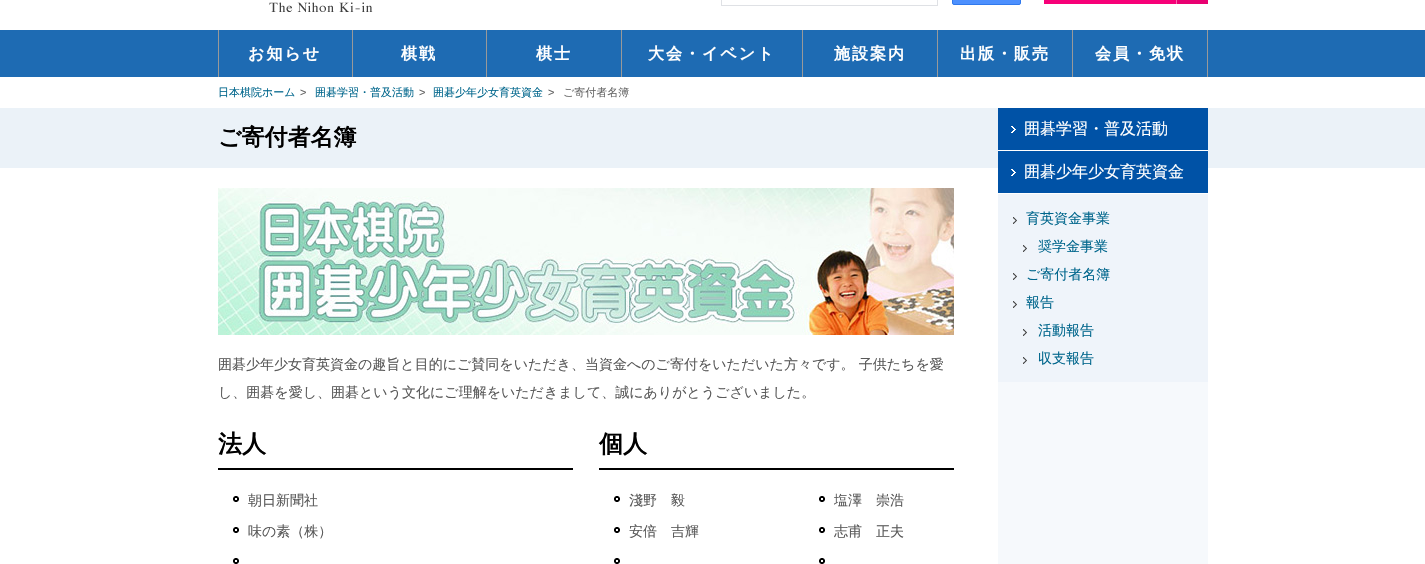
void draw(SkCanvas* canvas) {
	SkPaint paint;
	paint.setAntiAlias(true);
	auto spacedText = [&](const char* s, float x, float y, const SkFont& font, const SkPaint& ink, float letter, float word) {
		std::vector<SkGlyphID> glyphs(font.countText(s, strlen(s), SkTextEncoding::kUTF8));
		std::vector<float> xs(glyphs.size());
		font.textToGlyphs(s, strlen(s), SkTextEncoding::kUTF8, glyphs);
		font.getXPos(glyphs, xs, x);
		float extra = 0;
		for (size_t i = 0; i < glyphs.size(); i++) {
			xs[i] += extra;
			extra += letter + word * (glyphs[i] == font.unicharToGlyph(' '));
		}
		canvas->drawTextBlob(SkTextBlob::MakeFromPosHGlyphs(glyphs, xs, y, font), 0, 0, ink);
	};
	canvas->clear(0xffffffff);
	canvas->drawImageRect(SkImages::DeferredFromEncodedData(SkData::MakeFromFileName("img1.png")), SkRect::MakeXYWH(269, 2, 104, 10), SkSamplingOptions());
	canvas->drawImageRect(SkImages::DeferredFromEncodedData(SkData::MakeFromFileName("img2.png")), SkRect::MakeXYWH(721, 0, 300, 6), SkSamplingOptions());
	canvas->drawImageRect(SkImages::DeferredFromEncodedData(SkData::MakeFromFileName("img3.png")), SkRect::MakeXYWH(1044, 0, 164, 4), SkSamplingOptions());
	paint.setColor(0xff1e6bb3);
	canvas->drawRect(SkRect::MakeXYWH(0, 30, 1425, 47), paint);
	paint.setColor(0xff999999);
	canvas->drawRect(SkRect::MakeXYWH(218, 30, 1, 47), paint);
	SkFont f1(fontMgr->matchFamilyStyle("WenQuanYi Zen Hei", SkFontStyle::Bold()), 16);
	f1.setSubpixel(true);
	paint.setColor(0xffffffff);
	spacedText("お知らせ", 248, 59, f1, paint, 2, 0);
	paint.setColor(0xff999999);
	canvas->drawRect(SkRect::MakeXYWH(352, 30, 1, 47), paint);
	paint.setColor(0xffffffff);
	spacedText("棋戦", 401, 59, f1, paint, 2, 0);
	paint.setColor(0xff999999);
	canvas->drawRect(SkRect::MakeXYWH(486, 30, 1, 47), paint);
	paint.setColor(0xffffffff);
	spacedText("棋士", 536, 59, f1, paint, 2, 0);
	paint.setColor(0xff999999);
	canvas->drawRect(SkRect::MakeXYWH(621, 30, 1, 47), paint);
	paint.setColor(0xffffffff);
	spacedText("大会・イベント", 648, 59, f1, paint, 2, 0);
	paint.setColor(0xff999999);
	canvas->drawRect(SkRect::MakeXYWH(802, 30, 1, 47), paint);
	paint.setColor(0xffffffff);
	spacedText("施設案内", 834, 59, f1, paint, 2, 0);
	paint.setColor(0xff999999);
	canvas->drawRect(SkRect::MakeXYWH(937, 30, 1, 47), paint);
	paint.setColor(0xffffffff);
	spacedText("出版・販売", 960, 59, f1, paint, 2, 0);
	paint.setColor(0xff999999);
	canvas->drawRect(SkRect::MakeXYWH(1207, 30, 1, 47), paint);
	canvas->drawRect(SkRect::MakeXYWH(1072, 30, 1, 47), paint);
	paint.setColor(0xffffffff);
	spacedText("会員・免状", 1095, 59, f1, paint, 2, 0);
	SkFont f2(fontMgr->matchFamilyStyle("WenQuanYi Zen Hei", SkFontStyle(500, SkFontStyle::kNormal_Width, SkFontStyle::kUpright_Slant)), 11);
	f2.setSubpixel(true);
	paint.setColor(0xff00668c);
	canvas->drawString("日本棋院ホーム", 218, 96, f2, paint);
	SkFont f3(fontMgr->matchFamilyStyle("Liberation Sans", SkFontStyle::Normal()), 11);
	f3.setSubpixel(true);
	paint.setColor(0xff666666);
	canvas->drawString(">", 300, 96, f3, paint);
	paint.setColor(0xff00668c);
	canvas->drawString("囲碁学習・普及活動", 315, 96, f2, paint);
	paint.setColor(0xff666666);
	canvas->drawString(">", 419, 96, f3, paint);
	paint.setColor(0xff00668c);
	canvas->drawString("囲碁少年少女育英資金", 433, 96, f2, paint);
	paint.setColor(0xff666666);
	canvas->drawString(">", 548, 96, f3, paint);
	canvas->drawString("ご寄付者名簿", 563, 96, f2, paint);
	paint.setColor(0xfff6f9fc);
	canvas->drawRect(SkRect::MakeXYWH(998, 382, 210, 182), paint);
	paint.setColor(0xffebf2f8);
	canvas->drawRect(SkRect::MakeXYWH(0, 108, 1425, 60), paint);
	paint.setColor(0xff0052a6);
	canvas->drawRect(SkRect::MakeXYWH(998, 108, 210, 42), paint);
	paint.setColor(0xffffffff);
	canvas->drawRect(SkRect::MakeXYWH(998, 150, 210, 1), paint);
	canvas->drawImageRect(SkImages::DeferredFromEncodedData(SkData::MakeFromFileName("img4.png")), SkRect::MakeXYWH(1011, 126, 5, 7), SkSamplingOptions());
	SkFont f4(fontMgr->matchFamilyStyle("WenQuanYi Zen Hei", SkFontStyle(500, SkFontStyle::kNormal_Width, SkFontStyle::kUpright_Slant)), 16);
	f4.setSubpixel(true);
	canvas->drawString("囲碁学習・普及活動", 1024, 134, f4, paint);
	paint.setColor(0xff0052a6);
	canvas->drawRect(SkRect::MakeXYWH(998, 151, 210, 42), paint);
	canvas->drawImageRect(SkImages::DeferredFromEncodedData(SkData::MakeFromFileName("img4.png")), SkRect::MakeXYWH(1011, 169, 5, 7), SkSamplingOptions());
	paint.setColor(0xffffffff);
	canvas->drawString("囲碁少年少女育英資金", 1024, 177, f4, paint);
	paint.setColor(0xffeff4fa);
	canvas->drawRect(SkRect::MakeXYWH(998, 194, 210, 188), paint);
	canvas->drawImageRect(SkImages::DeferredFromEncodedData(SkData::MakeFromFileName("img5.png")), SkRect::MakeXYWH(1013, 217, 4, 7), SkSamplingOptions());
	SkFont f5(fontMgr->matchFamilyStyle("WenQuanYi Zen Hei", SkFontStyle(500, SkFontStyle::kNormal_Width, SkFontStyle::kUpright_Slant)), 14);
	f5.setSubpixel(true);
	paint.setColor(0xff00668c);
	canvas->drawString("育英資金事業", 1026, 223, f5, paint);
	canvas->drawImageRect(SkImages::DeferredFromEncodedData(SkData::MakeFromFileName("img5.png")), SkRect::MakeXYWH(1023, 245, 4, 7), SkSamplingOptions());
	canvas->drawString("奨学金事業", 1038, 251, f5, paint);
	canvas->drawImageRect(SkImages::DeferredFromEncodedData(SkData::MakeFromFileName("img5.png")), SkRect::MakeXYWH(1013, 273, 4, 7), SkSamplingOptions());
	canvas->drawString("ご寄付者名簿", 1026, 279, f5, paint);
	canvas->drawImageRect(SkImages::DeferredFromEncodedData(SkData::MakeFromFileName("img5.png")), SkRect::MakeXYWH(1013, 301, 4, 7), SkSamplingOptions());
	canvas->drawString("報告", 1026, 307, f5, paint);
	canvas->drawImageRect(SkImages::DeferredFromEncodedData(SkData::MakeFromFileName("img5.png")), SkRect::MakeXYWH(1023, 329, 4, 7), SkSamplingOptions());
	canvas->drawString("活動報告", 1038, 335, f5, paint);
	canvas->drawImageRect(SkImages::DeferredFromEncodedData(SkData::MakeFromFileName("img5.png")), SkRect::MakeXYWH(1023, 357, 4, 7), SkSamplingOptions());
	canvas->drawString("収支報告", 1038, 363, f5, paint);
	canvas->drawImageRect(SkImages::DeferredFromEncodedData(SkData::MakeFromFileName("img6.png")), SkRect::MakeXYWH(218, 188, 736, 147), SkSamplingOptions());
	paint.setColor(0xff595959);
	canvas->drawString("囲碁少年少女育英資金の趣旨と目的にご賛同をいただき、当資金へのご寄付をいただいた方々です。 子供たちを愛", 218, 369, f5, paint);
	canvas->drawString("し、囲碁を愛し、囲碁という文化にご理解をいただきまして、誠にありがとうございました。", 218, 397, f5, paint);
	paint.setColor(0xff000000);
	canvas->drawRect(SkRect::MakeXYWH(218, 468, 355, 2), paint);
	SkFont f6(fontMgr->matchFamilyStyle("WenQuanYi Zen Hei", SkFontStyle::Bold()), 24);
	f6.setSubpixel(true);
	canvas->drawString("法人", 218, 452, f6, paint);
	canvas->drawImageRect(SkImages::DeferredFromEncodedData(SkData::MakeFromFileName("img7.png")), SkRect::MakeXYWH(233, 496, 6, 6), SkSamplingOptions());
	paint.setColor(0xff595959);
	canvas->drawString("朝日新聞社", 248, 505, f5, paint);
	canvas->drawImageRect(SkImages::DeferredFromEncodedData(SkData::MakeFromFileName("img7.png")), SkRect::MakeXYWH(233, 527, 6, 6), SkSamplingOptions());
	canvas->drawString("味の素（株）", 248, 536, f5, paint);
	canvas->drawImageRect(SkImages::DeferredFromEncodedData(SkData::MakeFromFileName("img7.png")), SkRect::MakeXYWH(233, 558, 6, 6), SkSamplingOptions());
	paint.setColor(0xff000000);
	canvas->drawRect(SkRect::MakeXYWH(599, 468, 355, 2), paint);
	canvas->drawString("個人", 599, 452, f6, paint);
	canvas->drawImageRect(SkImages::DeferredFromEncodedData(SkData::MakeFromFileName("img7.png")), SkRect::MakeXYWH(614, 496, 6, 6), SkSamplingOptions());
	paint.setColor(0xff595959);
	canvas->drawString("淺野　毅", 629, 505, f5, paint);
	canvas->drawImageRect(SkImages::DeferredFromEncodedData(SkData::MakeFromFileName("img7.png")), SkRect::MakeXYWH(614, 527, 6, 6), SkSamplingOptions());
	canvas->drawString("安倍　吉輝", 629, 536, f5, paint);
	canvas->drawImageRect(SkImages::DeferredFromEncodedData(SkData::MakeFromFileName("img7.png")), SkRect::MakeXYWH(614, 558, 6, 6), SkSamplingOptions());
	canvas->drawImageRect(SkImages::DeferredFromEncodedData(SkData::MakeFromFileName("img7.png")), SkRect::MakeXYWH(819, 496, 6, 6), SkSamplingOptions());
	canvas->drawString("塩澤　崇浩", 834, 505, f5, paint);
	canvas->drawImageRect(SkImages::DeferredFromEncodedData(SkData::MakeFromFileName("img7.png")), SkRect::MakeXYWH(819, 527, 6, 6), SkSamplingOptions());
	canvas->drawString("志甫　正夫", 834, 536, f5, paint);
	canvas->drawImageRect(SkImages::DeferredFromEncodedData(SkData::MakeFromFileName("img7.png")), SkRect::MakeXYWH(819, 558, 6, 6), SkSamplingOptions());
	SkFont f7(fontMgr->matchFamilyStyle("WenQuanYi Zen Hei", SkFontStyle::Bold()), 23);
	f7.setSubpixel(true);
	paint.setColor(0xff000000);
	canvas->drawString("ご寄付者名簿", 218, 145, f7, paint);
}
